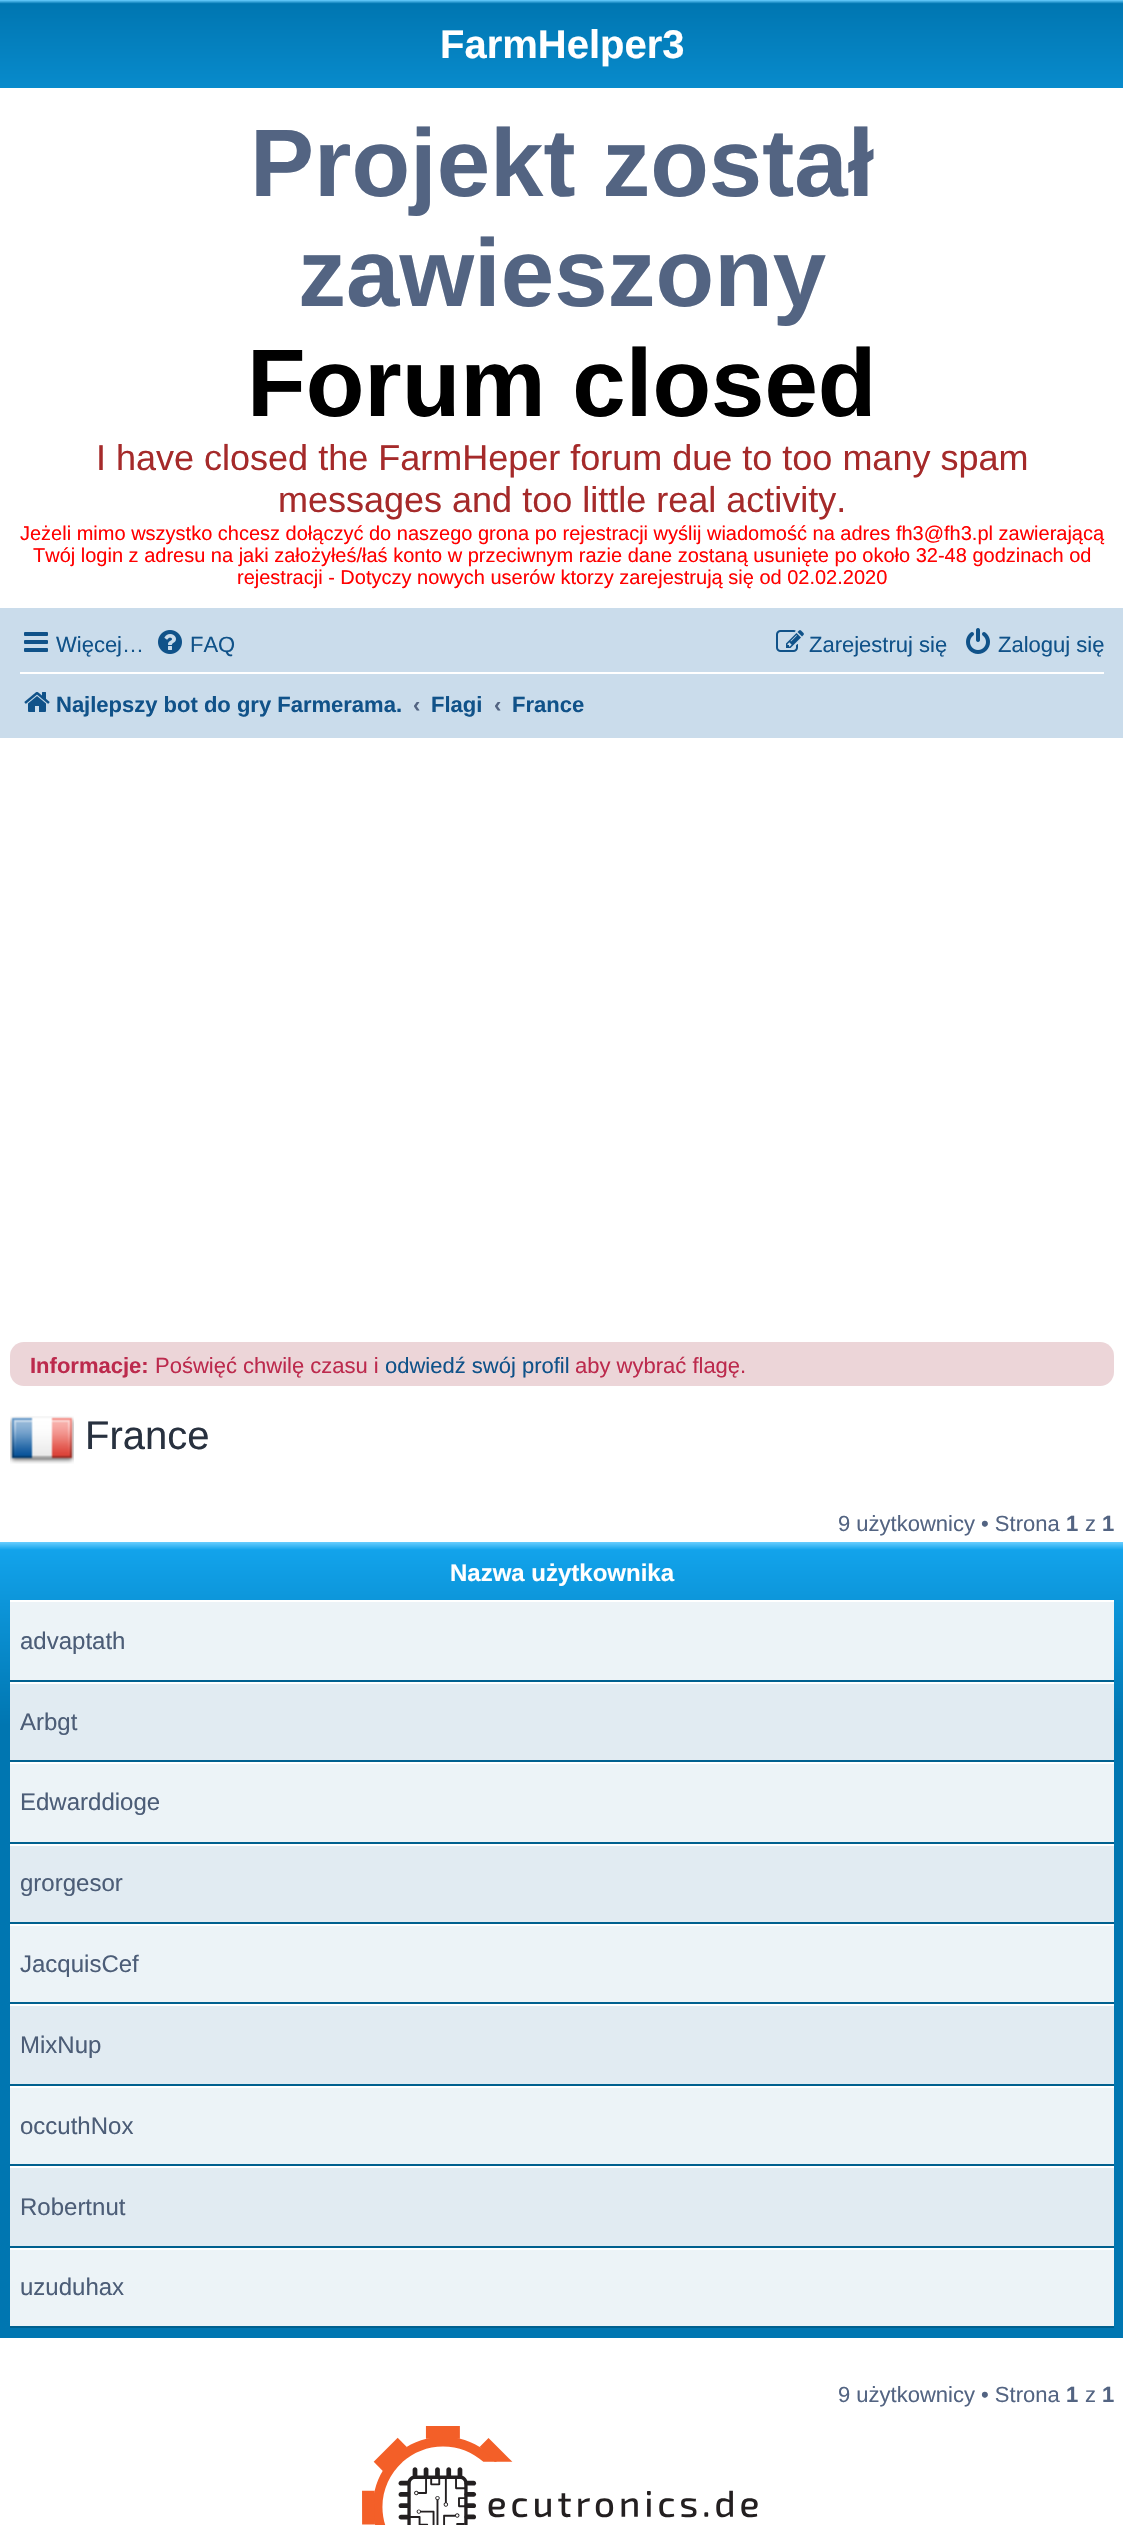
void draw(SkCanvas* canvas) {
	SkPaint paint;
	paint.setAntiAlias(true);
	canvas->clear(0xffffffff);
	{
		const SkColor colors[] = {0xff6aceff, 0xff0076b1, 0xff12a3eb};
		const float stops[] = {0, 0.02, 1};
		const SkPoint ends[] = {{562, 0}, {562, 184}};
		paint.setShader(SkGradientShader::MakeLinear(ends, colors, stops, 3, SkTileMode::kClamp));
		paint.setAlpha(255);
	}
	canvas->drawRect(SkRect::MakeXYWH(0, 0, 1123, 88), paint);
	SkFont f1(fontMgr->matchFamilyStyle("Liberation Sans", SkFontStyle::Bold()), 40);
	f1.setSubpixel(true);
	paint.setShader(nullptr);
	paint.setColor(0xffffffff);
	canvas->drawString("FarmHelper3", 440, 58, f1, paint);
	SkFont f2(fontMgr->matchFamilyStyle("Liberation Sans", SkFontStyle::Bold()), 96);
	f2.setSubpixel(true);
	paint.setColor(0xff536482);
	canvas->drawString("Projekt został", 250, 196, f2, paint);
	canvas->drawString("zawieszony", 298, 306, f2, paint);
	paint.setColor(0xff000000);
	canvas->drawString("Forum closed", 247, 416, f2, paint);
	SkFont f3(fontMgr->matchFamilyStyle("Liberation Sans", SkFontStyle::Normal()), 36);
	f3.setSubpixel(true);
	paint.setColor(0xffa52a2a);
	canvas->drawString("I have closed the FarmHeper forum due to too many spam", 96, 470, f3, paint);
	canvas->drawString("messages and too little real activity.", 278, 512, f3, paint);
	SkFont f4(fontMgr->matchFamilyStyle("Liberation Sans", SkFontStyle::Normal()), 20);
	f4.setSubpixel(true);
	paint.setColor(0xffff0000);
	canvas->drawString("Jeżeli mimo wszystko chcesz dołączyć do naszego grona po rejestracji wyślij wiadomość na adres fh3@fh3.pl zawierającą", 20, 540, f4, paint);
	canvas->drawString("Twój login z adresu na jaki założyłeś/łaś konto w przeciwnym razie dane zostaną usunięte po około 32-48 godzinach od", 33, 562, f4, paint);
	canvas->drawString("rejestracji - Dotyczy nowych userów ktorzy zarejestrują się od 02.02.2020", 237, 584, f4, paint);
	paint.setColor(0xffcadceb);
	canvas->drawRect(SkRect::MakeXYWH(0, 608, 1123, 130), paint);
	canvas->drawImageRect(SkImages::DeferredFromEncodedData(SkData::MakeFromFileName("img1.png")), SkRect::MakeXYWH(24, 632, 24, 20), SkSamplingOptions());
	SkFont f5(fontMgr->matchFamilyStyle("Liberation Sans", SkFontStyle::Normal()), 22);
	f5.setSubpixel(true);
	paint.setColor(0xff105289);
	canvas->drawString("Więcej…", 56, 652, f5, paint);
	canvas->drawImageRect(SkImages::DeferredFromEncodedData(SkData::MakeFromFileName("img2.png")), SkRect::MakeXYWH(158, 630, 24, 24), SkSamplingOptions());
	canvas->drawString("FAQ", 190, 652, f5, paint);
	canvas->drawImageRect(SkImages::DeferredFromEncodedData(SkData::MakeFromFileName("img3.png")), SkRect::MakeXYWH(776, 630, 28, 22), SkSamplingOptions());
	canvas->drawString("Zarejestruj się", 809, 652, f5, paint);
	canvas->drawImageRect(SkImages::DeferredFromEncodedData(SkData::MakeFromFileName("img4.png")), SkRect::MakeXYWH(966, 628, 24, 26), SkSamplingOptions());
	canvas->drawString("Zaloguj się", 998, 652, f5, paint);
	paint.setColor(0xffffffff);
	canvas->drawRect(SkRect::MakeXYWH(20, 672, 1084, 2), paint);
	canvas->drawImageRect(SkImages::DeferredFromEncodedData(SkData::MakeFromFileName("img5.png")), SkRect::MakeXYWH(24, 692, 26, 20), SkSamplingOptions());
	SkFont f6(fontMgr->matchFamilyStyle("Liberation Sans", SkFontStyle::Bold()), 22);
	f6.setSubpixel(true);
	paint.setColor(0xff105289);
	canvas->drawString("Najlepszy bot do gry Farmerama.", 56, 712, f6, paint);
	paint.setColor(0xff536482);
	canvas->drawString("‹", 413, 712, f6, paint);
	paint.setColor(0xff105289);
	canvas->drawString("Flagi", 431, 712, f6, paint);
	paint.setColor(0xff536482);
	canvas->drawString("‹", 494, 712, f6, paint);
	paint.setColor(0xff105289);
	canvas->drawString("France", 512, 712, f6, paint);
	paint.setColor(0xffecd5d8);
	canvas->drawRoundRect(SkRect::MakeXYWH(10, 1342, 1104, 44), 14, 14, paint);
	paint.setColor(0xffbc2a4d);
	canvas->drawString("Informacje:", 30, 1373, f6, paint);
	canvas->drawString("Poświęć chwilę czasu i", 155, 1373, f5, paint);
	paint.setColor(0xff105289);
	canvas->drawString("odwiedź swój profil", 385, 1373, f5, paint);
	paint.setColor(0xffbc2a4d);
	canvas->drawString("aby wybrać flagę.", 575, 1373, f5, paint);
	canvas->drawImageRect(SkImages::DeferredFromEncodedData(SkData::MakeFromFileName("img6.png")), SkRect::MakeXYWH(10, 1416, 64, 48), SkSamplingOptions());
	SkFont f7(fontMgr->matchFamilyStyle("Liberation Sans", SkFontStyle::Normal()), 40);
	f7.setSubpixel(true);
	paint.setColor(0xff28313f);
	canvas->drawString("France", 85, 1449, f7, paint);
	paint.setColor(0xff536482);
	canvas->drawString("9 użytkownicy • Strona", 838, 1531, f5, paint);
	canvas->drawString("1", 1066, 1531, f6, paint);
	canvas->drawString("z", 1085, 1531, f5, paint);
	canvas->drawString("1", 1102, 1531, f6, paint);
	{
		const SkColor colors[] = {0xff6aceff, 0xff12a3eb, 0xff0076b1, 0xff0076b1};
		const float stops[] = {0, 0.01, 0.23, 1};
		const SkPoint ends[] = {{562, 1542}, {562, 2338}};
		paint.setShader(SkGradientShader::MakeLinear(ends, colors, stops, 4, SkTileMode::kClamp));
		paint.setAlpha(255);
	}
	canvas->drawRect(SkRect::MakeXYWH(0, 1542, 1123, 796), paint);
	SkFont f8(fontMgr->matchFamilyStyle("Liberation Sans", SkFontStyle::Bold()), 24);
	f8.setSubpixel(true);
	paint.setShader(nullptr);
	paint.setColor(0xffffffff);
	canvas->drawString("Nazwa użytkownika", 450, 1581, f8, paint);
	paint.setColor(0xffecf3f7);
	canvas->drawRect(SkRect::MakeXYWH(10, 1602, 1104, 78), paint);
	paint.setColor(0xffffffff);
	canvas->drawRect(SkRect::MakeXYWH(10, 1600, 1104, 2), paint);
	paint.setColor(0xff00608f);
	canvas->drawRect(SkRect::MakeXYWH(10, 1680, 1104, 2), paint);
	SkFont f9(fontMgr->matchFamilyStyle("Liberation Sans", SkFontStyle::Normal()), 24);
	f9.setSubpixel(true);
	paint.setColor(0xff4c5d77);
	canvas->drawString("advaptath", 20, 1649, f9, paint);
	paint.setColor(0xffe1ebf2);
	canvas->drawRect(SkRect::MakeXYWH(10, 1684, 1104, 76), paint);
	paint.setColor(0xffffffff);
	canvas->drawRect(SkRect::MakeXYWH(10, 1682, 1104, 2), paint);
	paint.setColor(0xff00608f);
	canvas->drawRect(SkRect::MakeXYWH(10, 1760, 1104, 2), paint);
	paint.setColor(0xff4c5d77);
	canvas->drawString("Arbgt", 20, 1730, f9, paint);
	paint.setColor(0xffecf3f7);
	canvas->drawRect(SkRect::MakeXYWH(10, 1764, 1104, 78), paint);
	paint.setColor(0xffffffff);
	canvas->drawRect(SkRect::MakeXYWH(10, 1762, 1104, 2), paint);
	paint.setColor(0xff00608f);
	canvas->drawRect(SkRect::MakeXYWH(10, 1842, 1104, 2), paint);
	paint.setColor(0xff4c5d77);
	canvas->drawString("Edwarddioge", 20, 1810, f9, paint);
	paint.setColor(0xffe1ebf2);
	canvas->drawRect(SkRect::MakeXYWH(10, 1846, 1104, 76), paint);
	paint.setColor(0xffffffff);
	canvas->drawRect(SkRect::MakeXYWH(10, 1844, 1104, 2), paint);
	paint.setColor(0xff00608f);
	canvas->drawRect(SkRect::MakeXYWH(10, 1922, 1104, 2), paint);
	paint.setColor(0xff4c5d77);
	canvas->drawString("grorgesor", 20, 1891, f9, paint);
	paint.setColor(0xffecf3f7);
	canvas->drawRect(SkRect::MakeXYWH(10, 1926, 1104, 76), paint);
	paint.setColor(0xffffffff);
	canvas->drawRect(SkRect::MakeXYWH(10, 1924, 1104, 2), paint);
	paint.setColor(0xff00608f);
	canvas->drawRect(SkRect::MakeXYWH(10, 2002, 1104, 2), paint);
	paint.setColor(0xff4c5d77);
	canvas->drawString("JacquisCef", 20, 1972, f9, paint);
	paint.setColor(0xffe1ebf2);
	canvas->drawRect(SkRect::MakeXYWH(10, 2006, 1104, 78), paint);
	paint.setColor(0xffffffff);
	canvas->drawRect(SkRect::MakeXYWH(10, 2004, 1104, 2), paint);
	paint.setColor(0xff00608f);
	canvas->drawRect(SkRect::MakeXYWH(10, 2084, 1104, 2), paint);
	paint.setColor(0xff4c5d77);
	canvas->drawString("MixNup", 20, 2053, f9, paint);
	paint.setColor(0xffecf3f7);
	canvas->drawRect(SkRect::MakeXYWH(10, 2088, 1104, 76), paint);
	paint.setColor(0xffffffff);
	canvas->drawRect(SkRect::MakeXYWH(10, 2086, 1104, 2), paint);
	paint.setColor(0xff00608f);
	canvas->drawRect(SkRect::MakeXYWH(10, 2164, 1104, 2), paint);
	paint.setColor(0xff4c5d77);
	canvas->drawString("occuthNox", 20, 2134, f9, paint);
	paint.setColor(0xffe1ebf2);
	canvas->drawRect(SkRect::MakeXYWH(10, 2168, 1104, 78), paint);
	paint.setColor(0xffffffff);
	canvas->drawRect(SkRect::MakeXYWH(10, 2166, 1104, 2), paint);
	paint.setColor(0xff00608f);
	canvas->drawRect(SkRect::MakeXYWH(10, 2246, 1104, 2), paint);
	paint.setColor(0xff4c5d77);
	canvas->drawString("Robertnut", 20, 2215, f9, paint);
	paint.setColor(0xffecf3f7);
	canvas->drawRect(SkRect::MakeXYWH(10, 2250, 1104, 76), paint);
	paint.setColor(0xffffffff);
	canvas->drawRect(SkRect::MakeXYWH(10, 2248, 1104, 2), paint);
	paint.setColor(0xff00608f);
	canvas->drawRect(SkRect::MakeXYWH(10, 2326, 1104, 2), paint);
	paint.setColor(0xff4c5d77);
	canvas->drawString("uzuduhax", 20, 2295, f9, paint);
	paint.setColor(0xff536482);
	canvas->drawString("9 użytkownicy • Strona", 838, 2402, f5, paint);
	canvas->drawString("1", 1066, 2402, f6, paint);
	canvas->drawString("z", 1085, 2402, f5, paint);
	canvas->drawString("1", 1102, 2402, f6, paint);
	canvas->drawImageRect(SkImages::DeferredFromEncodedData(SkData::MakeFromFileName("img7.png")), SkRect::MakeXYWH(362, 2426, 396, 99), SkSamplingOptions());
}
